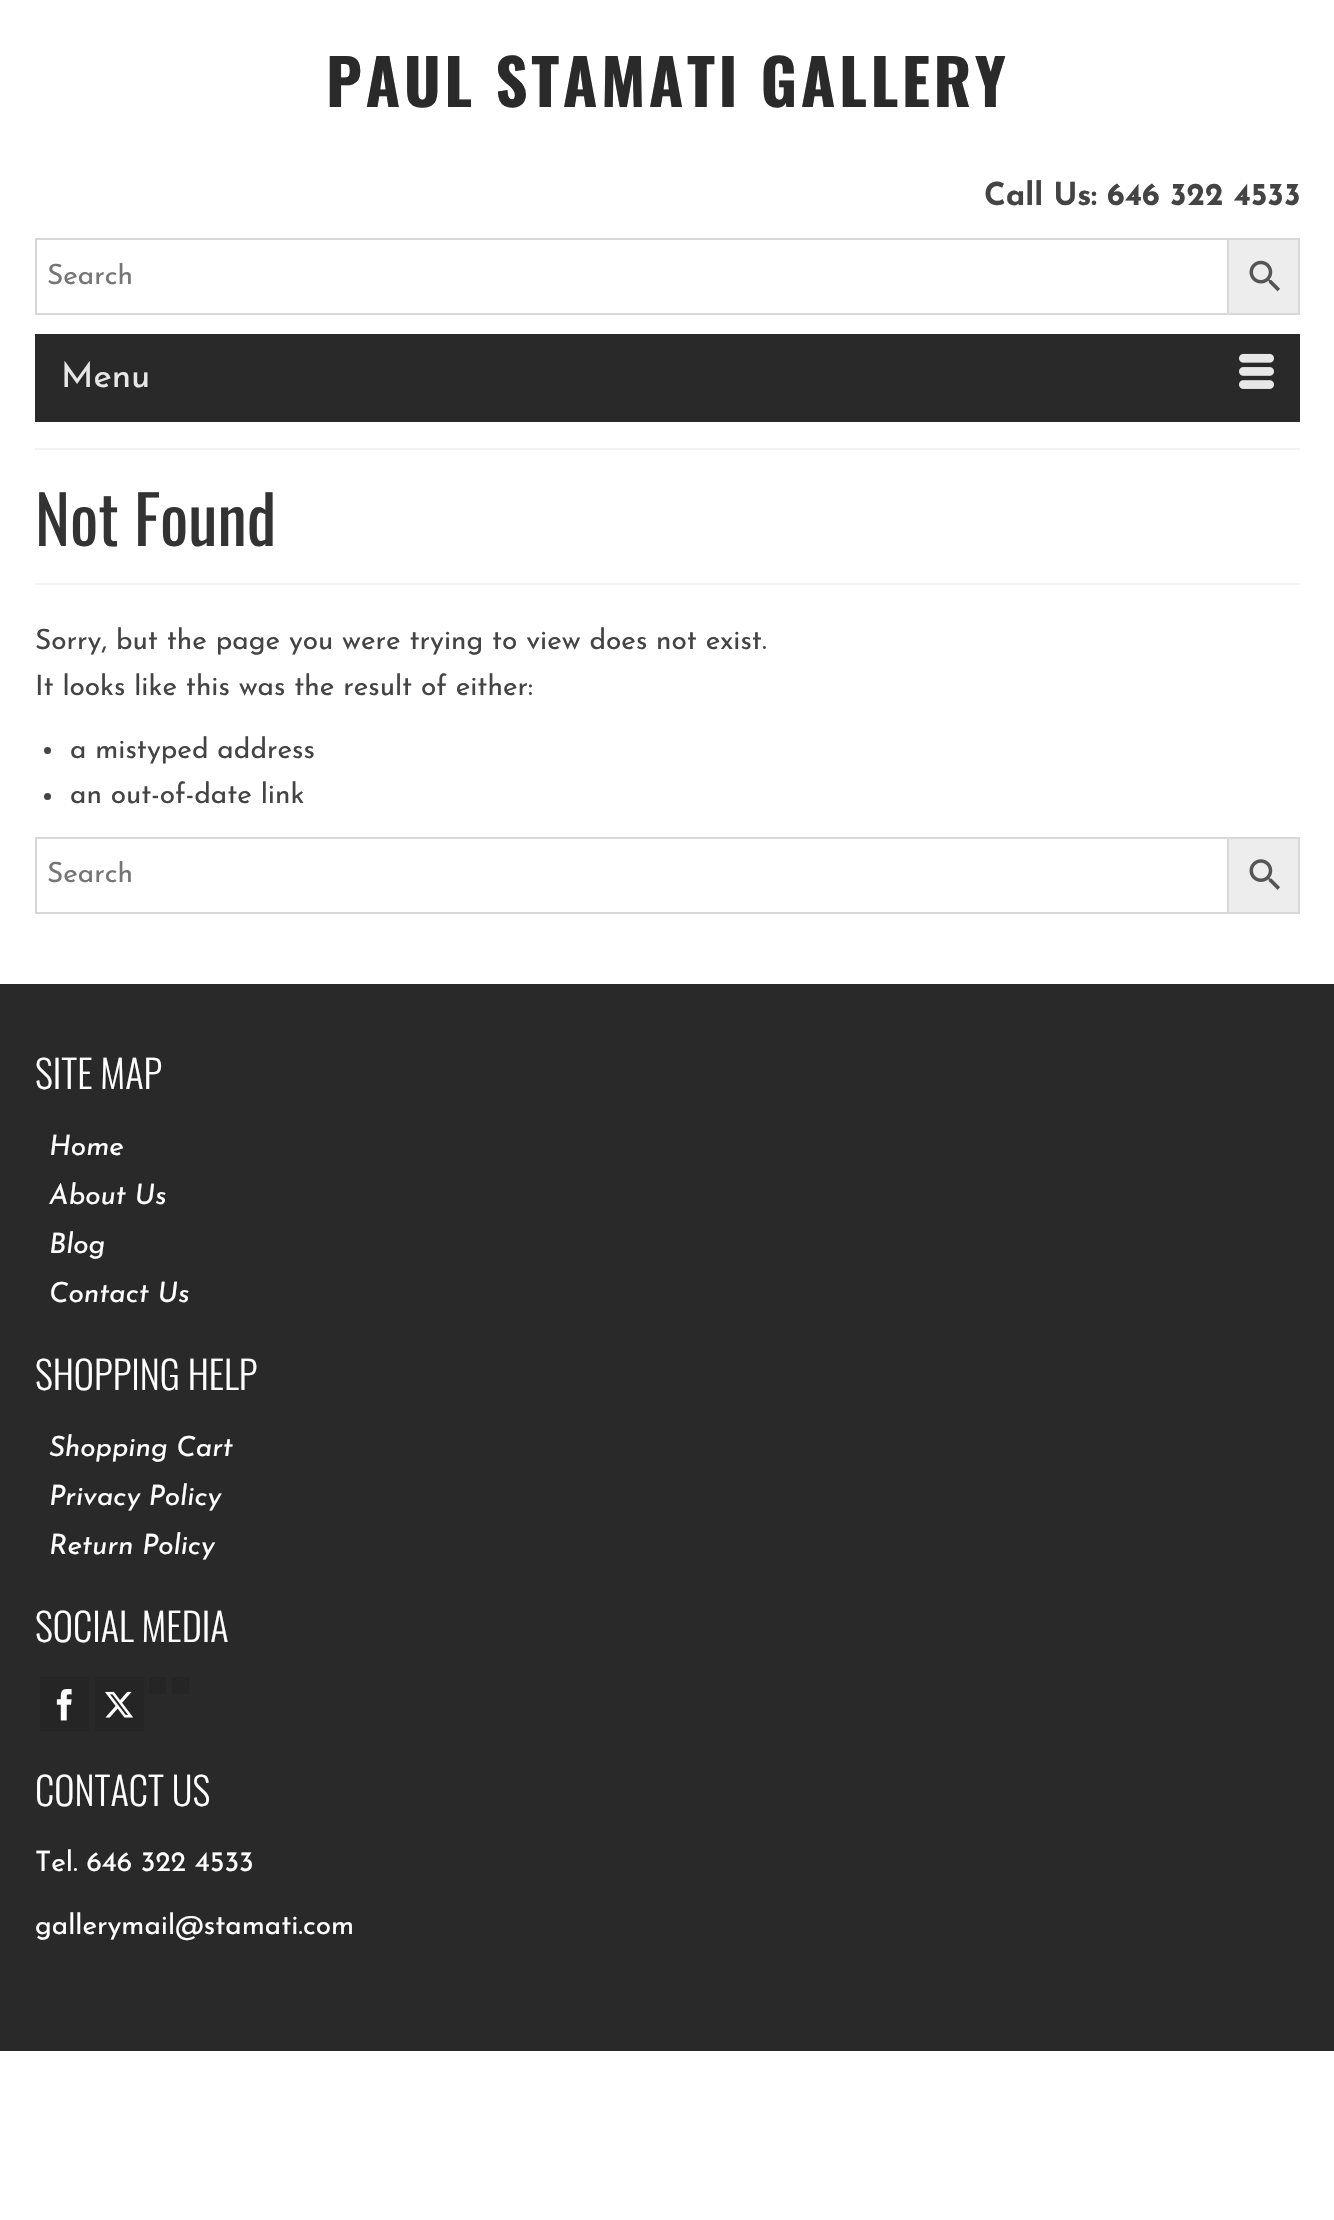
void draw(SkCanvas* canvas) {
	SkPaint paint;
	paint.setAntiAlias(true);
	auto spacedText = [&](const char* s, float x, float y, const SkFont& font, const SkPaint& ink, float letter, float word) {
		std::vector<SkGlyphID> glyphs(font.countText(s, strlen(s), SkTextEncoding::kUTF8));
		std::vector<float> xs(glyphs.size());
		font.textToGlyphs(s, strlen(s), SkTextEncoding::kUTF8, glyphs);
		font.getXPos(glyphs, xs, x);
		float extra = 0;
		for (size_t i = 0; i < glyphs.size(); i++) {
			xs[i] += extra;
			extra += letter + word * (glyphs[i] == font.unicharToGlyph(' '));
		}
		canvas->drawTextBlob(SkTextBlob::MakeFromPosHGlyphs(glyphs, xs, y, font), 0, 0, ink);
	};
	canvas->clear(0xffffffff);
	SkFont f1(fontMgr->matchFamilyStyle("Oswald", SkFontStyle::Bold()), 63);
	f1.setSubpixel(true);
	paint.setColor(0xff2a2a2a);
	spacedText("PAUL STAMATI GALLERY", 326, 107, f1, paint, 3.5, 0);
	SkFont f2(fontMgr->matchFamilyStyle("Josefin Sans", SkFontStyle(100, SkFontStyle::kNormal_Width, SkFontStyle::kUpright_Slant)), 31.5);
	f2.setSubpixel(true);
	paint.setColor(0xff444444);
	canvas->drawString("Call Us:", 984, 205, f2, paint);
	canvas->drawString("646 322 4533", 1107, 205, f2, paint);
	paint.setColor(0xffededed);
	canvas->drawRect(SkRect::MakeXYWH(1228, 239, 71, 75), paint);
	paint.setStroke(true);
	paint.setStrokeWidth(2);
	paint.setColor(0xffd8d8d8);
	canvas->drawRect(SkRect::MakeXYWH(1228, 239, 71, 75), paint);
	canvas->drawRect(SkRect::MakeXYWH(36, 239, 1192, 75), paint);
	canvas->save();
	canvas->clipRect(SkRect::MakeXYWH(47, 263, 1110, 28));
	SkFont f3(fontMgr->matchFamilyStyle("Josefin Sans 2", SkFontStyle(100, SkFontStyle::kNormal_Width, SkFontStyle::kUpright_Slant)), 28);
	f3.setSubpixel(true);
	paint.setStroke(false);
	paint.setColor(0xff757575);
	canvas->drawString("Search", 47, 284, f3, paint);
	canvas->restore();
	canvas->drawImageRect(SkImages::DeferredFromEncodedData(SkData::MakeFromFileName("img1.png")), SkRect::MakeXYWH(1249, 260, 31, 32), SkSamplingOptions());
	paint.setColor(0xff292929);
	canvas->drawRect(SkRect::MakeXYWH(35, 334, 1265, 88), paint);
	SkFont f4(fontMgr->matchFamilyStyle("Josefin Sans 2", SkFontStyle(100, SkFontStyle::kNormal_Width, SkFontStyle::kUpright_Slant)), 35);
	f4.setSubpixel(true);
	paint.setColor(0xffe7e7e7);
	canvas->drawString("Menu", 61, 387, f4, paint);
	canvas->drawImageRect(SkImages::DeferredFromEncodedData(SkData::MakeFromFileName("img2.png")), SkRect::MakeXYWH(1239, 353, 35, 36), SkSamplingOptions());
	paint.setColor(0xfff2f2f2);
	canvas->drawRect(SkRect::MakeXYWH(35, 448, 1265, 2), paint);
	canvas->drawRect(SkRect::MakeXYWH(35, 583, 1265, 2), paint);
	SkFont f5(fontMgr->matchFamilyStyle("Oswald", SkFontStyle::Normal()), 66.5);
	f5.setSubpixel(true);
	paint.setColor(0xff333333);
	canvas->drawString("Not Found", 35, 546, f5, paint);
	paint.setColor(0xff444444);
	canvas->drawString("Sorry, but the page you were trying to view does not exist.", 35, 649, f3, paint);
	canvas->drawString("It looks like this was the result of either:", 35, 695, f3, paint);
	canvas->drawCircle(47.5, 750.5, 3.5, paint);
	canvas->drawString("a mistyped address", 70, 758, f3, paint);
	canvas->drawCircle(47.5, 796.5, 3.5, paint);
	canvas->drawString("an out-of-date link", 70, 803, f3, paint);
	paint.setColor(0xffededed);
	canvas->drawRect(SkRect::MakeXYWH(1228, 838, 71, 75), paint);
	paint.setStroke(true);
	paint.setColor(0xffd8d8d8);
	canvas->drawRect(SkRect::MakeXYWH(1228, 838, 71, 75), paint);
	canvas->drawRect(SkRect::MakeXYWH(36, 838, 1192, 75), paint);
	canvas->save();
	canvas->clipRect(SkRect::MakeXYWH(47, 861, 1110, 28));
	paint.setStroke(false);
	paint.setColor(0xff757575);
	canvas->drawString("Search", 47, 882, f3, paint);
	canvas->restore();
	canvas->drawImageRect(SkImages::DeferredFromEncodedData(SkData::MakeFromFileName("img3.png")), SkRect::MakeXYWH(1249, 859, 31, 31), SkSamplingOptions());
	paint.setColor(0xff292929);
	canvas->drawRect(SkRect::MakeXYWH(0, 984, 1334, 1067), paint);
	SkFont f6(fontMgr->matchFamilyStyle("Oswald", SkFontStyle(300, SkFontStyle::kNormal_Width, SkFontStyle::kUpright_Slant)), 38.5);
	f6.setSubpixel(true);
	paint.setColor(0xffffffff);
	canvas->drawString("SITE MAP", 35, 1089, f6, paint);
	SkFont f7(fontMgr->matchFamilyStyle("Josefin Sans", SkFontStyle(100, SkFontStyle::kNormal_Width, SkFontStyle::kItalic_Slant)), 28);
	f7.setSubpixel(true);
	canvas->drawString("Home", 49, 1155, f7, paint);
	canvas->drawString("About Us", 49, 1204, f7, paint);
	canvas->drawString("Blog", 49, 1253, f7, paint);
	canvas->drawString("Contact Us", 49, 1302, f7, paint);
	canvas->drawString("SHOPPING HELP", 35, 1390, f6, paint);
	canvas->drawString("Shopping Cart", 49, 1456, f7, paint);
	canvas->drawString("Privacy Policy", 49, 1505, f7, paint);
	canvas->drawString("Return Policy", 49, 1554, f7, paint);
	canvas->drawString("SOCIAL MEDIA", 35, 1642, f6, paint);
	paint.setColor(0xff252525);
	canvas->drawRect(SkRect::MakeXYWH(40, 1677, 49, 54), paint);
	canvas->drawImageRect(SkImages::DeferredFromEncodedData(SkData::MakeFromFileName("img4.png")), SkRect::MakeXYWH(56, 1689, 16, 32), SkSamplingOptions());
	canvas->drawRect(SkRect::MakeXYWH(95, 1677, 49, 54), paint);
	canvas->drawImageRect(SkImages::DeferredFromEncodedData(SkData::MakeFromFileName("img5.png")), SkRect::MakeXYWH(105, 1691, 29, 27), SkSamplingOptions());
	canvas->drawRect(SkRect::MakeXYWH(149, 1677, 17, 17), paint);
	canvas->drawRect(SkRect::MakeXYWH(172, 1677, 17, 17), paint);
	paint.setColor(0xffffffff);
	canvas->drawString("CONTACT US", 35, 1806, f6, paint);
	canvas->drawString("Tel. 646 322 4533", 35, 1871, f3, paint);
	canvas->drawString("gallerymail@stamati.com", 35, 1934, f3, paint);
}
